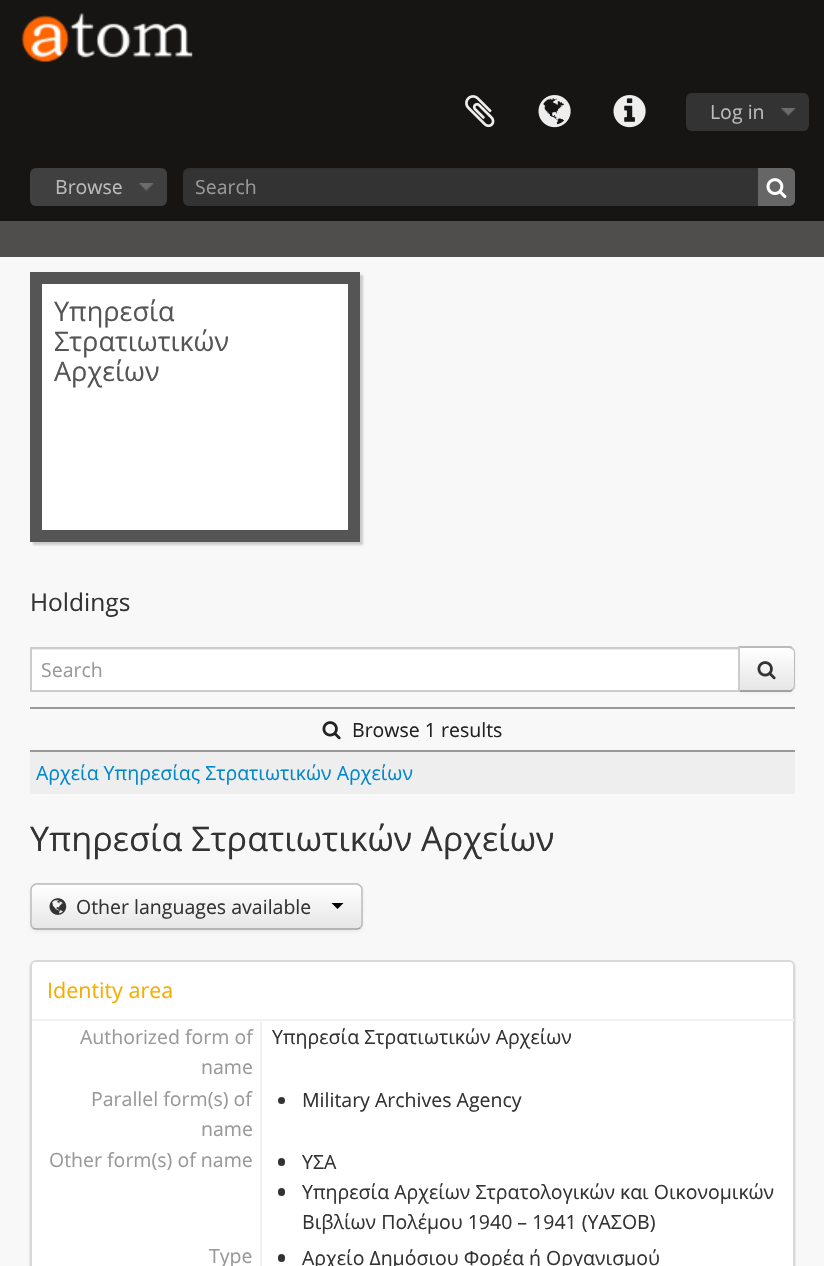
void draw(SkCanvas* canvas) {
	SkPaint paint;
	paint.setAntiAlias(true);
	auto svgPath = [&](const char* data, bool evenOdd = false) {
		SkPath result = *SkParsePath::FromSVGString(data);
		if (evenOdd) result.setFillType(SkPathFillType::kEvenOdd);
		return result;
	};
	canvas->clear(0xfff8f8f8);
	paint.setColor(0xff161514);
	canvas->drawRect(SkRect::MakeXYWH(0, 0, 824, 221), paint);
	canvas->drawImageRect(SkImages::DeferredFromEncodedData(SkData::MakeFromFileName("img1.png")), SkRect::MakeXYWH(21, 13, 172, 49), SkSamplingOptions());
	canvas->drawImageRect(SkImages::DeferredFromEncodedData(SkData::MakeFromFileName("img2.png")), SkRect::MakeXYWH(465, 95, 30, 33), SkSamplingOptions());
	canvas->drawImageRect(SkImages::DeferredFromEncodedData(SkData::MakeFromFileName("img3.png")), SkRect::MakeXYWH(538, 95, 33, 33), SkSamplingOptions());
	canvas->drawImageRect(SkImages::DeferredFromEncodedData(SkData::MakeFromFileName("img4.png")), SkRect::MakeXYWH(613, 95, 33, 33), SkSamplingOptions());
	paint.setColor(0xff333333);
	canvas->drawRoundRect(SkRect::MakeXYWH(686, 93, 123, 38), 6, 6, paint);
	canvas->drawImageRect(SkImages::DeferredFromEncodedData(SkData::MakeFromFileName("img5.png")), SkRect::MakeXYWH(781, 108, 15, 8), SkSamplingOptions());
	SkFont f1(fontMgr->matchFamilyStyle("Open Sans", SkFontStyle::Normal()), 19.5);
	f1.setSubpixel(true);
	paint.setColor(0xffbbbbbb);
	canvas->drawString("Log in", 710, 119, f1, paint);
	paint.setColor(0xff404040);
	canvas->drawRoundRect(SkRect::MakeXYWH(30, 168, 137, 38), 6, 6, paint);
	canvas->drawImageRect(SkImages::DeferredFromEncodedData(SkData::MakeFromFileName("img6.png")), SkRect::MakeXYWH(139, 183, 15, 8), SkSamplingOptions());
	paint.setColor(0xffbbbbbb);
	canvas->drawString("Browse", 55, 194, f1, paint);
	paint.setColor(0xff333333);
	canvas->drawRoundRect(SkRect::MakeXYWH(183, 168, 612, 38), 6, 6, paint);
	paint.setColor(0x12000000);
	canvas->drawPath(svgPath("M189 170H789C792 170 795 172 795 176V174C795 171 792 168 789 168H189C186 168 183 171 183 174V176C183 172 186 170 189 170Z"), paint);
	paint.setColor(0xff999999);
	canvas->drawString("Search", 195, 194, f1, paint);
	paint.setColor(0xff666666);
	canvas->drawPath(svgPath("M758 168H789C792.5 168 795 170.5 795 174V200C795 203.5 792.5 206 789 206H758Z"), paint);
	canvas->drawImageRect(SkImages::DeferredFromEncodedData(SkData::MakeFromFileName("img7.png")), SkRect::MakeXYWH(766, 178, 21, 20), SkSamplingOptions());
	paint.setColor(0xff4f4e4d);
	canvas->drawRect(SkRect::MakeXYWH(0, 221, 824, 36), paint);
	paint.setColor(0x33191919);
	paint.setMaskFilter(SkMaskFilter::MakeBlur(kNormal_SkBlurStyle, 1));
	canvas->drawRect(SkRect::MakeXYWH(33, 275, 330, 270), paint);
	paint.setMaskFilter(nullptr);
	paint.setColor(0xffffffff);
	canvas->drawRect(SkRect::MakeXYWH(36, 278, 318, 258), paint);
	paint.setStroke(true);
	paint.setStrokeWidth(12);
	paint.setColor(0xff555555);
	canvas->drawRect(SkRect::MakeXYWH(36, 278, 318, 258), paint);
	SkFont f2(fontMgr->matchFamilyStyle("Open Sans", SkFontStyle::Normal()), 27);
	f2.setSubpixel(true);
	paint.setStroke(false);
	canvas->drawString("Υπηρεσία", 54, 321, f2, paint);
	canvas->drawString("Στρατιωτικών", 54, 351, f2, paint);
	canvas->drawString("Αρχείων", 54, 381, f2, paint);
	SkFont f3(fontMgr->matchFamilyStyle("Open Sans", SkFontStyle::Normal()), 24.5);
	f3.setSubpixel(true);
	paint.setColor(0xff333333);
	canvas->drawString("Holdings", 30, 611, f3, paint);
	paint.setColor(0x0d000000);
	paint.setMaskFilter(SkMaskFilter::MakeBlur(kNormal_SkBlurStyle, 1.5));
	canvas->drawRoundRect(SkRect::MakeXYWH(738, 648, 57, 45), 6, 6, paint);
	paint.setMaskFilter(nullptr);
	paint.setColor(0xffffffff);
	canvas->drawRect(SkRect::MakeXYWH(32, 650, 706, 40), paint);
	paint.setColor(0xffececec);
	canvas->drawRect(SkRect::MakeXYWH(32, 649, 706, 1), paint);
	paint.setColor(0xfff5f5f5);
	canvas->drawPath(svgPath("M738 647H789C792.5 647 795 649.5 795 653V686C795 689.5 792.5 692 789 692H738Z"), paint);
	canvas->save();
	canvas->clipPath(svgPath("M738 647H789C792.5 647 795 649.5 795 653V686C795 689.5 792.5 692 789 692H738Z"), true);
	{
		const SkColor colors[] = {0xffffffff, 0xffe6e6e6};
		const float stops[] = {0, 1};
		const SkPoint ends[] = {{767, 648}, {767, 690}};
		paint.setShader(SkGradientShader::MakeLinear(ends, colors, stops, 2, SkTileMode::kClamp));
		paint.setAlpha(255);
	}
	canvas->drawRect(SkRect::MakeXYWH(740, 648, 55, 42), paint);
	canvas->restore();
	paint.setShader(nullptr);
	paint.setColor(0xffbbbbbb);
	canvas->drawPath(svgPath("M740 648L738 646H791L793 648L792 649L789 648Z"), paint);
	canvas->drawPath(svgPath("M795 686V652C795 651 794 649 793 648L792 649C793 650 794 651 794 652V686C794 687 793 688 792 689L793 690C794 689 795 687 795 686Z"), paint);
	paint.setColor(0xffa2a2a2);
	canvas->drawPath(svgPath("M791 692H738L740 690H789C790 690 791 690 792 689L793 690Z"), paint);
	paint.setColor(0xffbbbbbb);
	canvas->drawPath(svgPath("M738 692L740 690V648L738 646Z"), paint);
	paint.setStroke(true);
	paint.setStrokeWidth(2);
	paint.setColor(0xffcccccc);
	canvas->drawRect(SkRect::MakeXYWH(31, 648, 708, 43), paint);
	paint.setStroke(false);
	paint.setColor(0xff999999);
	canvas->drawString("Search", 41, 677, f1, paint);
	canvas->drawImageRect(SkImages::DeferredFromEncodedData(SkData::MakeFromFileName("img8.png")), SkRect::MakeXYWH(757, 661, 19, 19), SkSamplingOptions());
	canvas->drawRect(SkRect::MakeXYWH(30, 707, 765, 2), paint);
	canvas->drawImageRect(SkImages::DeferredFromEncodedData(SkData::MakeFromFileName("img9.png")), SkRect::MakeXYWH(322, 721, 19, 19), SkSamplingOptions());
	paint.setColor(0xff222222);
	canvas->drawString("Browse 1 results", 352, 737, f1, paint);
	paint.setColor(0xffeeeeee);
	canvas->drawRect(SkRect::MakeXYWH(30, 752, 765, 42), paint);
	paint.setColor(0xff999999);
	canvas->drawRect(SkRect::MakeXYWH(30, 750, 765, 2), paint);
	paint.setColor(0xff0088cc);
	canvas->drawString("Αρχεία Υπηρεσίας Στρατιωτικών Αρχείων", 36, 780, f1, paint);
	SkFont f4(fontMgr->matchFamilyStyle("Open Sans", SkFontStyle::Normal()), 34.1);
	f4.setSubpixel(true);
	paint.setColor(0xff333333);
	canvas->drawString("Υπηρεσία Στρατιωτικών Αρχείων", 30, 851, f4, paint);
	paint.setColor(0x0d000000);
	paint.setMaskFilter(SkMaskFilter::MakeBlur(kNormal_SkBlurStyle, 1.5));
	canvas->drawRoundRect(SkRect::MakeXYWH(30, 885, 333, 47), 6, 6, paint);
	paint.setMaskFilter(nullptr);
	paint.setColor(0xfff5f5f5);
	canvas->drawRoundRect(SkRect::MakeXYWH(30, 884, 333, 46), 6, 6, paint);
	canvas->save();
	canvas->clipPath(svgPath("M36 884H357C360.5 884 363 886.5 363 890V924C363 927.5 360.5 930 357 930H36C32.5 930 30 927.5 30 924V890C30 886.5 32.5 884 36 884Z"), true);
	{
		const SkColor colors[] = {0xffffffff, 0xffe6e6e6};
		const float stops[] = {0, 1};
		const SkPoint ends[] = {{197, 885}, {197, 929}};
		paint.setShader(SkGradientShader::MakeLinear(ends, colors, stops, 2, SkTileMode::kClamp));
		paint.setAlpha(255);
	}
	canvas->drawRect(SkRect::MakeXYWH(30, 885, 333, 44), paint);
	canvas->restore();
	paint.setStroke(true);
	paint.setStrokeWidth(1.5);
	paint.setShader(nullptr);
	paint.setColor(0xffa2a2a2);
	canvas->drawPath(svgPath("M360.5 927.5C359.5 928.5 358.5 929 357 929H36C34.5 929 33.5 928.5 32.5 927.5"), paint);
	paint.setColor(0xffbbbbbb);
	canvas->drawPath(svgPath("M32.5 927.5C31.5 926.5 31 925.5 31 924V889.5C31 888 31.5 887 32.5 886C33.5 885 34.5 884 36 884H357C358.5 884 359.5 885 360.5 886C361.5 887 362 888 362 889.5V924C362 925.5 361.5 926.5 360.5 927.5"), paint);
	canvas->drawImageRect(SkImages::DeferredFromEncodedData(SkData::MakeFromFileName("img10.png")), SkRect::MakeXYWH(49, 898, 18, 17), SkSamplingOptions());
	paint.setStroke(false);
	paint.setColor(0xff333333);
	canvas->drawString("Other languages available", 76, 914, f1, paint);
	paint.setColor(0xff000000);
	canvas->drawPath(svgPath("M331.5 903H343.5L337.5 909Z"), paint);
	paint.setColor(0x33000000);
	paint.setMaskFilter(SkMaskFilter::MakeBlur(kNormal_SkBlurStyle, 1));
	canvas->drawRoundRect(SkRect::MakeXYWH(30, 962, 765, 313), 6, 6, paint);
	paint.setMaskFilter(nullptr);
	paint.setColor(0xffffffff);
	canvas->drawRoundRect(SkRect::MakeXYWH(31, 961, 763, 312), 5, 5, paint);
	paint.setStroke(true);
	paint.setStrokeWidth(2);
	paint.setColor(0xffd9d9d9);
	canvas->drawRoundRect(SkRect::MakeXYWH(31, 961, 763, 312), 5, 5, paint);
	paint.setStroke(false);
	paint.setColor(0xfff2f2f2);
	canvas->drawRect(SkRect::MakeXYWH(32, 1019, 762, 2), paint);
	SkFont f5(fontMgr->matchFamilyStyle("Open Sans", SkFontStyle::Normal()), 21.5);
	f5.setSubpixel(true);
	paint.setColor(0xfff6ac00);
	canvas->drawString("Identity area", 47, 998, f5, paint);
	paint.setColor(0xfff2f2f2);
	canvas->drawRect(SkRect::MakeXYWH(260, 1020, 2, 246), paint);
	paint.setColor(0xff999999);
	canvas->drawString("Authorized form of", 80, 1044, f1, paint);
	canvas->drawString("name", 201, 1074, f1, paint);
	paint.setColor(0xff333333);
	canvas->drawString("Υπηρεσία Στρατιωτικών Αρχείων", 272, 1044, f1, paint);
	paint.setColor(0xff999999);
	canvas->drawString("Parallel form(s) of", 91, 1106, f1, paint);
	canvas->drawString("name", 201, 1136, f1, paint);
	paint.setColor(0xff333333);
	canvas->drawCircle(281.5, 1100.5, 3.5, paint);
	canvas->drawString("Military Archives Agency", 302, 1107, f1, paint);
	paint.setColor(0xff999999);
	canvas->drawString("Other form(s) of name", 49, 1167, f1, paint);
	paint.setColor(0xff333333);
	canvas->drawRoundRect(SkRect::MakeXYWH(278, 1158, 7, 8), 3.5, 3.5, paint);
	canvas->drawString("ΥΣΑ", 302, 1169, f1, paint);
	canvas->drawRoundRect(SkRect::MakeXYWH(278, 1188, 7, 8), 3.5, 3.5, paint);
	canvas->drawString("Υπηρεσία Αρχείων Στρατολογικών και Οικονομικών", 302, 1199, f1, paint);
	canvas->drawString("Βιβλίων Πολέμου 1940 – 1941 (ΥΑΣΟΒ)", 302, 1229, f1, paint);
	paint.setColor(0xff999999);
	canvas->drawString("Type", 209, 1263, f1, paint);
	paint.setColor(0xff333333);
	canvas->drawRoundRect(SkRect::MakeXYWH(278, 1254, 7, 8), 3.5, 3.5, paint);
	canvas->drawString("Αρχείο Δημόσιου Φορέα ή Οργανισμού", 302, 1265, f1, paint);
}
